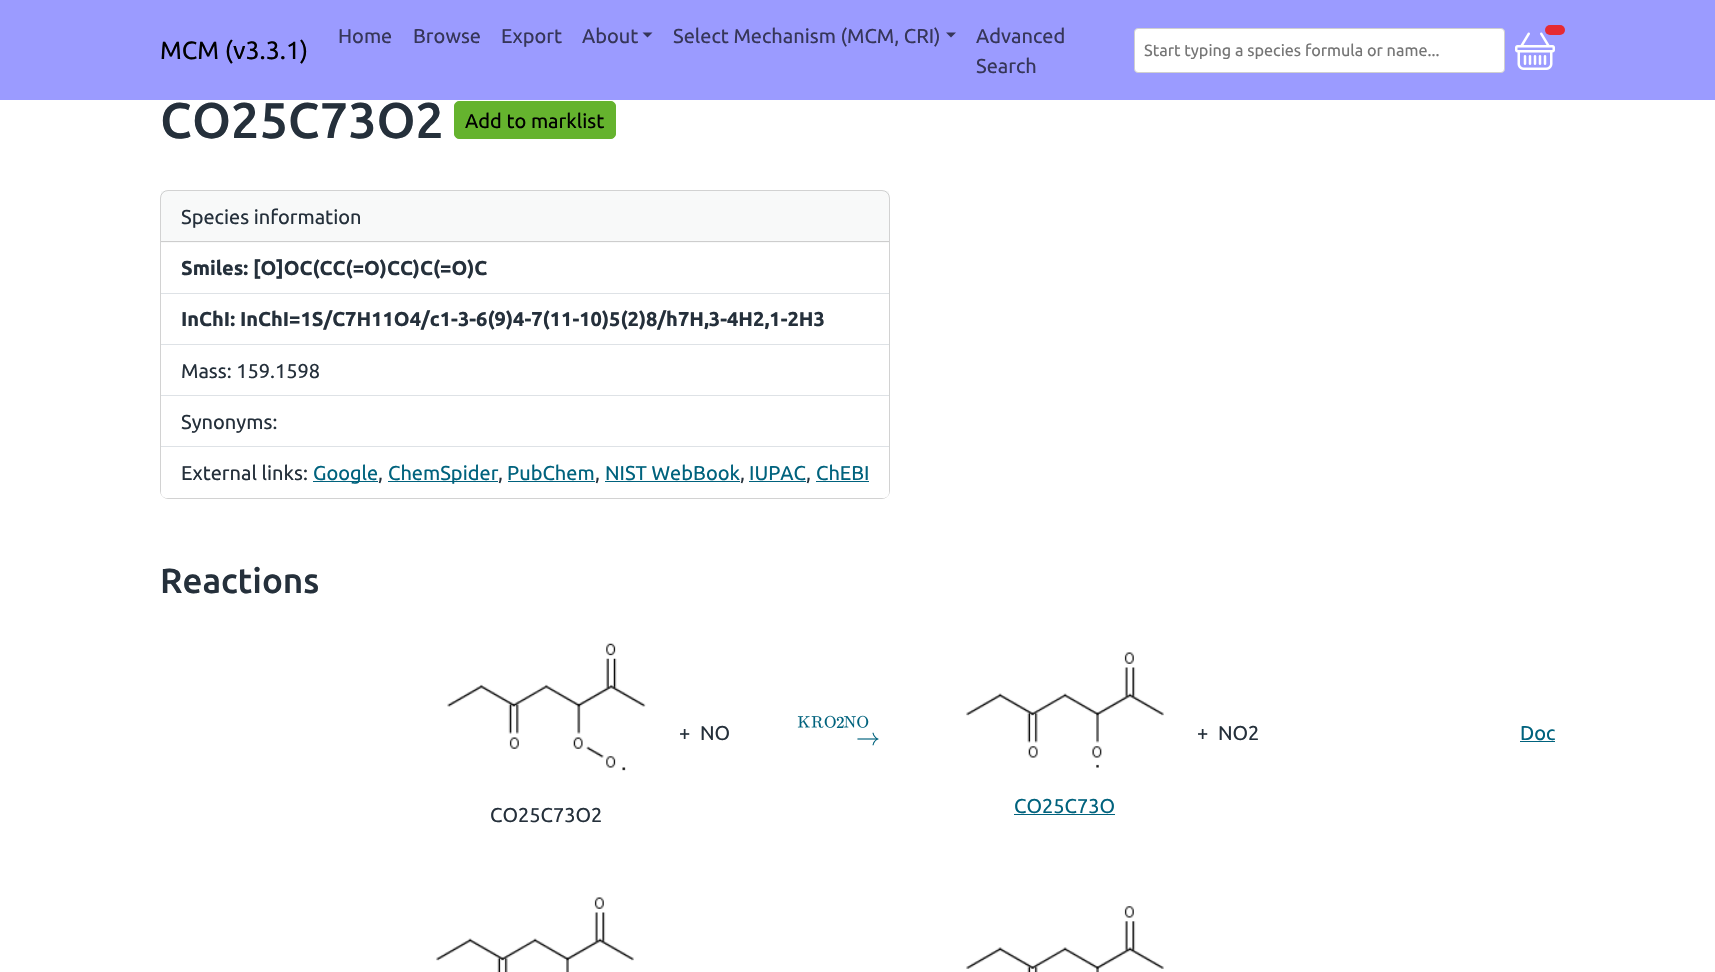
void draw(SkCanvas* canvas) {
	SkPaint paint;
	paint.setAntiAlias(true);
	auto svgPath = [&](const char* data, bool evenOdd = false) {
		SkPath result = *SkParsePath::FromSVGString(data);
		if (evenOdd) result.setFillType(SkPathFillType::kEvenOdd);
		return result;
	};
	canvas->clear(0xffffffff);
	paint.setColor(0xff9b9bff);
	canvas->drawRect(SkRect::MakeXYWH(0, 0, 1715, 100), paint);
	SkFont f1(fontMgr->matchFamilyStyle("Ubuntu", SkFontStyle::Normal()), 25);
	f1.setSubpixel(true);
	paint.setColor(0xff000000);
	canvas->drawString("MCM (v3.3.1)", 160, 59, f1, paint);
	SkFont f2(fontMgr->matchFamilyStyle("Ubuntu", SkFontStyle::Normal()), 20);
	f2.setSubpixel(true);
	paint.setColor(0xff363659);
	canvas->drawString("Home", 338, 43, f2, paint);
	canvas->drawString("Browse", 413, 43, f2, paint);
	canvas->drawString("Export", 501, 43, f2, paint);
	canvas->drawString("About", 582, 43, f2, paint);
	canvas->drawPath(svgPath("M642.5 32.5H652.5L647.5 37.5Z"), paint);
	canvas->drawString("Select Mechanism (MCM, CRI)", 673, 43, f2, paint);
	canvas->drawPath(svgPath("M946 32.5H956L951 37.5Z"), paint);
	canvas->drawString("Advanced", 976, 43, f2, paint);
	canvas->drawString("Search", 976, 73, f2, paint);
	paint.setColor(0xffffffff);
	canvas->drawRoundRect(SkRect::MakeXYWH(1134.5, 28.5, 370, 44), 3.5, 3.5, paint);
	paint.setStroke(true);
	paint.setStrokeWidth(1);
	paint.setColor(0xffd0d0d0);
	canvas->drawRoundRect(SkRect::MakeXYWH(1134.5, 28.5, 370, 44), 3.5, 3.5, paint);
	SkFont f3(fontMgr->matchFamilyStyle("Ubuntu", SkFontStyle::Normal()), 16.25);
	f3.setSubpixel(true);
	paint.setStroke(false);
	paint.setColor(0xff757575);
	canvas->drawString("Start typing a species formula or name...", 1144, 56, f3, paint);
	canvas->drawImageRect(SkImages::DeferredFromEncodedData(SkData::MakeFromFileName("img1.png")), SkRect::MakeXYWH(1515, 32, 40, 38), SkSamplingOptions());
	paint.setColor(0xffe62a32);
	canvas->drawRoundRect(SkRect::MakeXYWH(1545, 25, 20, 10), 5, 5, paint);
	SkFont f4(fontMgr->matchFamilyStyle("Ubuntu", SkFontStyle(500, SkFontStyle::kNormal_Width, SkFontStyle::kUpright_Slant)), 50);
	f4.setSubpixel(true);
	paint.setColor(0xff25303b);
	canvas->drawString("CO25C73O2", 160, 138, f4, paint);
	paint.setColor(0xff65b32e);
	canvas->drawRoundRect(SkRect::MakeXYWH(454.5, 101.5, 161, 37), 4.5, 4.5, paint);
	paint.setStroke(true);
	canvas->drawRoundRect(SkRect::MakeXYWH(454.5, 101.5, 161, 37), 4.5, 4.5, paint);
	paint.setStroke(false);
	paint.setColor(0xff000000);
	canvas->drawString("Add to marklist", 465, 128, f2, paint);
	paint.setStroke(true);
	paint.setColor(0xffd2d2d2);
	canvas->drawRoundRect(SkRect::MakeXYWH(160.5, 190.5, 729, 308), 7.5, 7.5, paint);
	paint.setStroke(false);
	paint.setColor(0x0825303b);
	canvas->drawRect(SkRect::MakeXYWH(161, 191, 728, 52), paint);
	paint.setColor(0xffcdcdcd);
	canvas->drawRect(SkRect::MakeXYWH(161, 241, 728, 1), paint);
	paint.setColor(0xff25303b);
	canvas->drawString("Species information", 181, 224, f2, paint);
	paint.setColor(0xffdee2e6);
	canvas->drawRect(SkRect::MakeXYWH(161, 293, 728, 1), paint);
	SkFont f5(fontMgr->matchFamilyStyle("Ubuntu", SkFontStyle::Bold()), 20);
	f5.setSubpixel(true);
	paint.setColor(0xff25303b);
	canvas->drawString("Smiles: [O]OC(CC(=O)CC)C(=O)C", 181, 275, f5, paint);
	paint.setColor(0xffdee2e6);
	canvas->drawRect(SkRect::MakeXYWH(161, 344, 728, 1), paint);
	paint.setColor(0xff25303b);
	canvas->drawString("InChI: InChI=1S/C7H11O4/c1-3-6(9)4-7(11-10)5(2)8/h7H,3-4H2,1-2H3", 181, 326, f5, paint);
	paint.setColor(0xffdee2e6);
	canvas->drawRect(SkRect::MakeXYWH(161, 395, 728, 1), paint);
	paint.setColor(0xff25303b);
	canvas->drawString("Mass: 159.1598", 181, 378, f2, paint);
	paint.setColor(0xffdee2e6);
	canvas->drawRect(SkRect::MakeXYWH(161, 446, 728, 1), paint);
	paint.setColor(0xff25303b);
	canvas->drawString("Synonyms:", 181, 429, f2, paint);
	paint.setColor(0xffffffff);
	canvas->drawPath(svgPath("M161 448H889V492C889 495.5 886.5 498 883 498H167C163.5 498 161 495.5 161 492Z"), paint);
	paint.setColor(0xff25303b);
	canvas->drawString("External links:", 181, 480, f2, paint);
	paint.setColor(0xff00627d);
	canvas->drawRect(SkRect::MakeXYWH(313, 481, 65, 1), paint);
	canvas->drawString("Google", 313, 480, f2, paint);
	paint.setColor(0xff25303b);
	canvas->drawString(",", 378, 480, f2, paint);
	paint.setColor(0xff00627d);
	canvas->drawRect(SkRect::MakeXYWH(388, 481, 110, 1), paint);
	canvas->drawString("ChemSpider", 388, 480, f2, paint);
	paint.setColor(0xff25303b);
	canvas->drawString(",", 498, 480, f2, paint);
	paint.setColor(0xff00627d);
	canvas->drawString("PubChem", 507, 480, f2, paint);
	canvas->drawRect(SkRect::MakeXYWH(508, 481, 87, 1), paint);
	paint.setColor(0xff25303b);
	canvas->drawString(",", 595, 480, f2, paint);
	paint.setColor(0xff00627d);
	canvas->drawString("NIST WebBook", 605, 480, f2, paint);
	canvas->drawRect(SkRect::MakeXYWH(605, 481, 135, 1), paint);
	paint.setColor(0xff25303b);
	canvas->drawString(",", 740, 480, f2, paint);
	paint.setColor(0xff00627d);
	canvas->drawString("IUPAC", 749, 480, f2, paint);
	canvas->drawRect(SkRect::MakeXYWH(749, 481, 57, 1), paint);
	paint.setColor(0xff25303b);
	canvas->drawString(",", 806, 480, f2, paint);
	paint.setColor(0xff00627d);
	canvas->drawString("ChEBI", 816, 480, f2, paint);
	canvas->drawRect(SkRect::MakeXYWH(816, 481, 53, 1), paint);
	SkFont f6(fontMgr->matchFamilyStyle("Ubuntu", SkFontStyle(500, SkFontStyle::kNormal_Width, SkFontStyle::kUpright_Slant)), 35);
	f6.setSubpixel(true);
	paint.setColor(0xff25303b);
	canvas->drawString("Reactions", 160, 593, f6, paint);
	canvas->drawString("+", 679, 740, f2, paint);
	canvas->drawString("NO", 700, 740, f2, paint);
	canvas->drawImageRect(SkImages::DeferredFromEncodedData(SkData::MakeFromFileName("img2.png")), SkRect::MakeXYWH(447, 643, 199, 128), SkSamplingOptions());
	canvas->drawString("CO25C73O2", 490, 822, f2, paint);
	canvas->drawImageRect(SkImages::DeferredFromEncodedData(SkData::MakeFromFileName("img3.png")), SkRect::MakeXYWH(797, 716, 13, 12), SkSamplingOptions());
	canvas->drawImageRect(SkImages::DeferredFromEncodedData(SkData::MakeFromFileName("img4.png")), SkRect::MakeXYWH(811, 716, 13, 12), SkSamplingOptions());
	canvas->drawImageRect(SkImages::DeferredFromEncodedData(SkData::MakeFromFileName("img5.png")), SkRect::MakeXYWH(824, 715, 12, 13), SkSamplingOptions());
	SkFont f7(fontMgr->matchFamilyStyle("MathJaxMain", SkFontStyle::Normal()), 17);
	f7.setSubpixel(true);
	paint.setColor(0xff00627d);
	canvas->drawString("2", 836, 728, f7, paint);
	canvas->drawImageRect(SkImages::DeferredFromEncodedData(SkData::MakeFromFileName("img6.png")), SkRect::MakeXYWH(844, 716, 12, 12), SkSamplingOptions());
	canvas->drawImageRect(SkImages::DeferredFromEncodedData(SkData::MakeFromFileName("img7.png")), SkRect::MakeXYWH(857, 715, 12, 13), SkSamplingOptions());
	SkFont f8(fontMgr->matchFamilyStyle("MathJaxMain", SkFontStyle::Normal()), 24);
	f8.setSubpixel(true);
	canvas->drawString("→", 856, 745, f8, paint);
	paint.setColor(0xff25303b);
	canvas->drawString("+", 1197, 740, f2, paint);
	canvas->drawString("NO2", 1218, 740, f2, paint);
	canvas->drawImageRect(SkImages::DeferredFromEncodedData(SkData::MakeFromFileName("img8.png")), SkRect::MakeXYWH(966, 652, 198, 116), SkSamplingOptions());
	paint.setColor(0xff00627d);
	canvas->drawString("CO25C73O", 1014, 813, f2, paint);
	canvas->drawRect(SkRect::MakeXYWH(1014, 814, 101, 1), paint);
	canvas->drawString("Doc", 1520, 740, f2, paint);
	canvas->drawRect(SkRect::MakeXYWH(1520, 741, 35, 1), paint);
	canvas->drawImageRect(SkImages::DeferredFromEncodedData(SkData::MakeFromFileName("img9.png")), SkRect::MakeXYWH(436, 897, 198, 75), SkSamplingOptions());
	canvas->drawImageRect(SkImages::DeferredFromEncodedData(SkData::MakeFromFileName("img10.png")), SkRect::MakeXYWH(966, 906, 198, 66), SkSamplingOptions());
}
